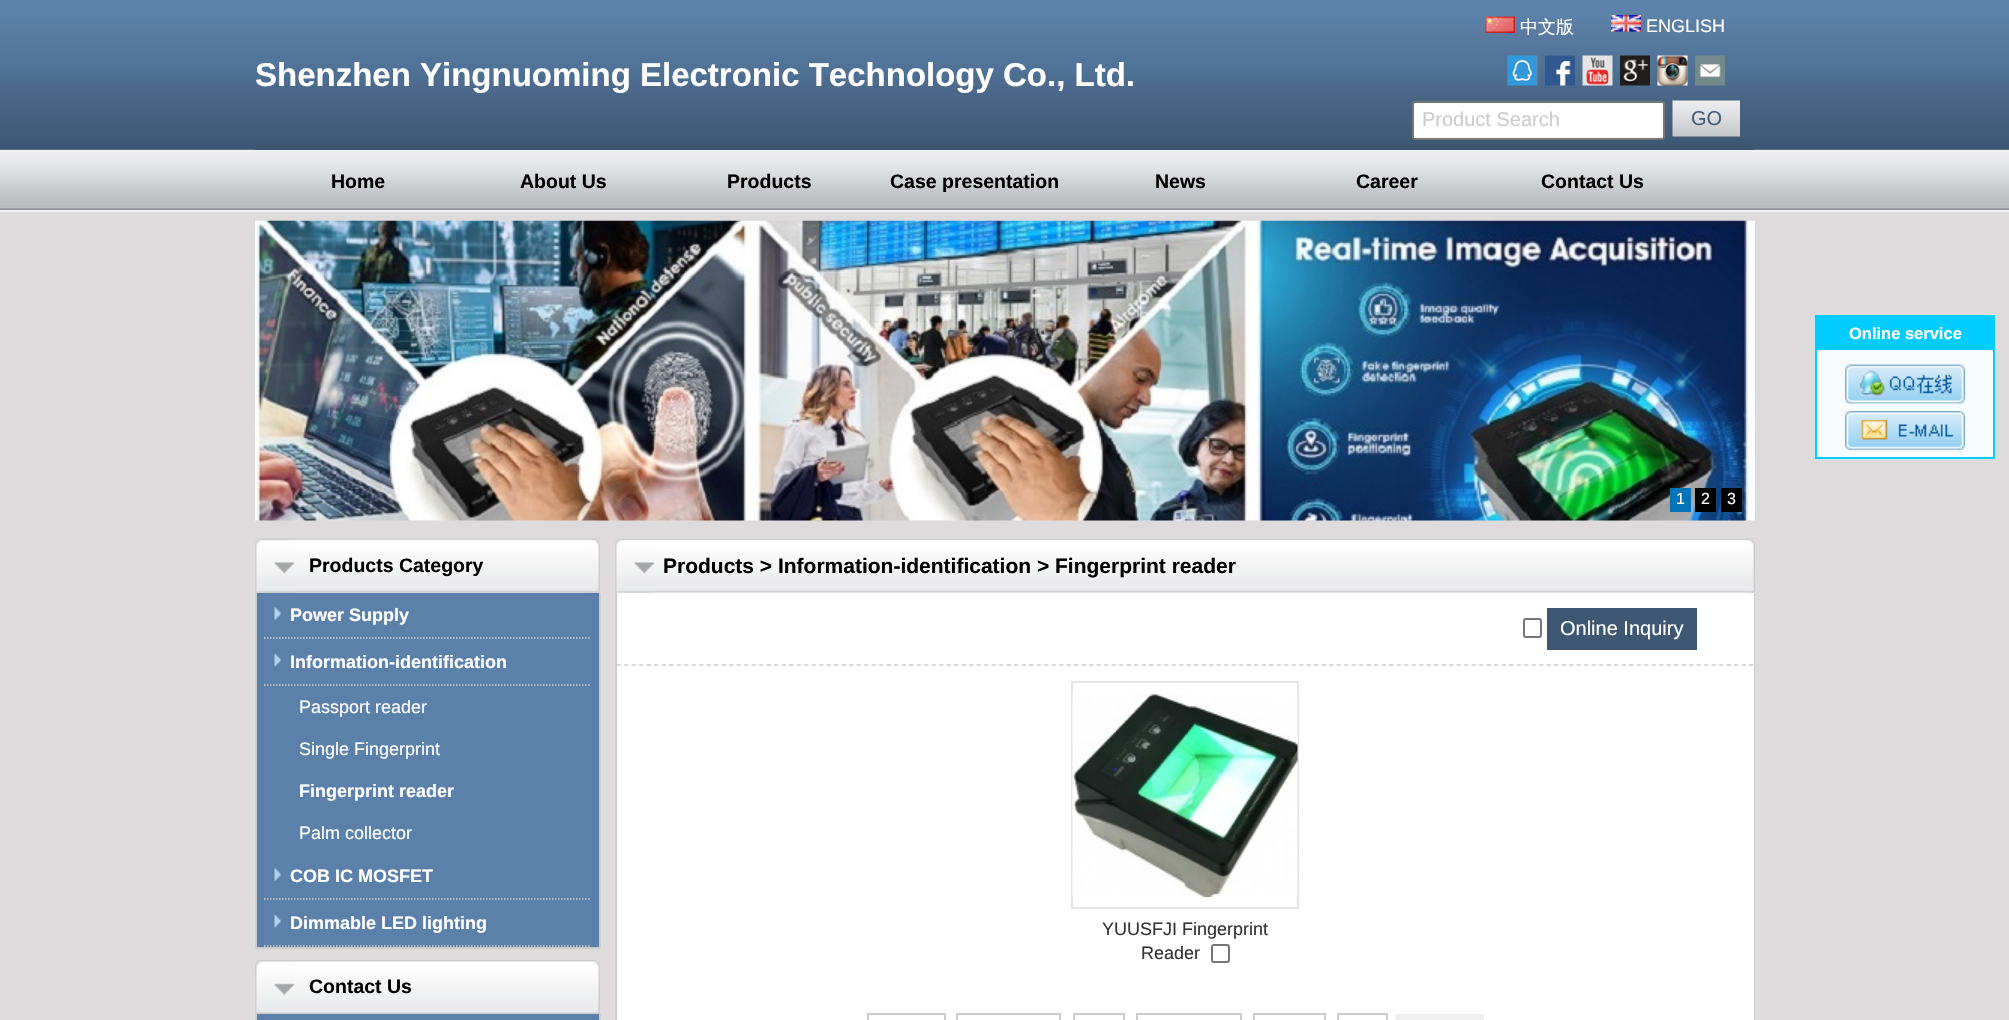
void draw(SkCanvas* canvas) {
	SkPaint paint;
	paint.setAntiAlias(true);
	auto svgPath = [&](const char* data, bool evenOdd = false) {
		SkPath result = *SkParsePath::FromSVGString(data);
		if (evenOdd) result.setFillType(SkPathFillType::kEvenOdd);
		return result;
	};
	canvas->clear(0xffdddbdc);
	canvas->drawImageRect(SkImages::DeferredFromEncodedData(SkData::MakeFromFileName("img1.png")), SkRect::MakeXYWH(0, 0, 2009, 212), SkSamplingOptions());
	paint.setColor(0xff3e5873);
	canvas->drawRect(SkRect::MakeXYWH(255, 147, 1500, 3), paint);
	SkFont f1(fontMgr->matchFamilyStyle("Liberation Sans", SkFontStyle::Bold()), 33);
	f1.setSubpixel(true);
	paint.setColor(0xffffffff);
	canvas->drawString("Shenzhen Yingnuoming Electronic Technology Co., Ltd.", 255, 86, f1, paint);
	canvas->drawImageRect(SkImages::DeferredFromEncodedData(SkData::MakeFromFileName("img2.png")), SkRect::MakeXYWH(1485, 16, 30, 17), SkSamplingOptions());
	SkFont f2(fontMgr->matchFamilyStyle("WenQuanYi Zen Hei", SkFontStyle(500, SkFontStyle::kNormal_Width, SkFontStyle::kUpright_Slant)), 18);
	f2.setSubpixel(true);
	canvas->drawString("中文版", 1520, 33, f2, paint);
	canvas->drawImageRect(SkImages::DeferredFromEncodedData(SkData::MakeFromFileName("img3.png")), SkRect::MakeXYWH(1611, 15, 30, 17), SkSamplingOptions());
	SkFont f3(fontMgr->matchFamilyStyle("Liberation Sans", SkFontStyle::Normal()), 18);
	f3.setSubpixel(true);
	canvas->drawString("ENGLISH", 1646, 32, f3, paint);
	canvas->drawImageRect(SkImages::DeferredFromEncodedData(SkData::MakeFromFileName("img4.png")), SkRect::MakeXYWH(1507, 55, 31, 31), SkSamplingOptions());
	canvas->drawImageRect(SkImages::DeferredFromEncodedData(SkData::MakeFromFileName("img5.png")), SkRect::MakeXYWH(1545, 55, 30, 31), SkSamplingOptions());
	canvas->drawImageRect(SkImages::DeferredFromEncodedData(SkData::MakeFromFileName("img6.png")), SkRect::MakeXYWH(1582, 55, 31, 31), SkSamplingOptions());
	canvas->drawImageRect(SkImages::DeferredFromEncodedData(SkData::MakeFromFileName("img7.png")), SkRect::MakeXYWH(1620, 55, 30, 31), SkSamplingOptions());
	canvas->drawImageRect(SkImages::DeferredFromEncodedData(SkData::MakeFromFileName("img8.png")), SkRect::MakeXYWH(1657, 55, 31, 31), SkSamplingOptions());
	canvas->drawImageRect(SkImages::DeferredFromEncodedData(SkData::MakeFromFileName("img9.png")), SkRect::MakeXYWH(1695, 55, 30, 31), SkSamplingOptions());
	canvas->drawRoundRect(SkRect::MakeXYWH(1413, 102, 251, 37), 2, 2, paint);
	paint.setStroke(true);
	paint.setStrokeWidth(2);
	paint.setColor(0xff767676);
	canvas->drawRoundRect(SkRect::MakeXYWH(1413, 102, 251, 37), 2, 2, paint);
	SkFont f4(fontMgr->matchFamilyStyle("Liberation Sans", SkFontStyle::Normal()), 20);
	f4.setSubpixel(true);
	paint.setStroke(false);
	paint.setColor(0xffcccccc);
	canvas->drawString("Product Search", 1422, 126, f4, paint);
	canvas->drawImageRect(SkImages::DeferredFromEncodedData(SkData::MakeFromFileName("img10.png")), SkRect::MakeXYWH(1672, 100, 68, 37), SkSamplingOptions());
	paint.setColor(0xff425d7a);
	canvas->drawString("GO", 1691, 125, f4, paint);
	canvas->drawImageRect(SkImages::DeferredFromEncodedData(SkData::MakeFromFileName("img11.png")), SkRect::MakeXYWH(0, 150, 2009, 62), SkSamplingOptions());
	SkFont f5(fontMgr->matchFamilyStyle("Liberation Sans", SkFontStyle::Bold()), 19.5);
	f5.setSubpixel(true);
	paint.setColor(0xff000000);
	canvas->drawString("Home", 331, 188, f5, paint);
	canvas->drawString("About Us", 520, 188, f5, paint);
	canvas->drawString("Products", 727, 188, f5, paint);
	canvas->drawString("Case presentation", 890, 188, f5, paint);
	canvas->drawString("News", 1155, 188, f5, paint);
	canvas->drawString("Career", 1356, 188, f5, paint);
	canvas->drawString("Contact Us", 1541, 188, f5, paint);
	canvas->drawImageRect(SkImages::DeferredFromEncodedData(SkData::MakeFromFileName("img12.png")), SkRect::MakeXYWH(255, 220, 1500, 301), SkSamplingOptions());
	paint.setColor(0xff0173ba);
	canvas->drawRect(SkRect::MakeXYWH(1670, 488, 21, 24), paint);
	SkFont f6(fontMgr->matchFamilyStyle("Liberation Sans", SkFontStyle::Normal()), 16);
	f6.setSubpixel(true);
	paint.setColor(0xffffffff);
	canvas->drawString("1", 1676, 504, f6, paint);
	paint.setColor(0xff000000);
	canvas->drawRect(SkRect::MakeXYWH(1695, 488, 21, 24), paint);
	paint.setColor(0xffffffff);
	canvas->drawString("2", 1701, 504, f6, paint);
	paint.setColor(0xff000000);
	canvas->drawRect(SkRect::MakeXYWH(1721, 488, 21, 24), paint);
	paint.setColor(0xffffffff);
	canvas->drawString("3", 1727, 504, f6, paint);
	canvas->drawImageRect(SkImages::DeferredFromEncodedData(SkData::MakeFromFileName("img13.png")), SkRect::MakeXYWH(255, 538, 345, 55), SkSamplingOptions());
	canvas->drawImageRect(SkImages::DeferredFromEncodedData(SkData::MakeFromFileName("img14.png")), SkRect::MakeXYWH(255, 538, 39, 55), SkSamplingOptions());
	paint.setColor(0xff000000);
	canvas->drawString("Products Category", 309, 572, f5, paint);
	canvas->drawImageRect(SkImages::DeferredFromEncodedData(SkData::MakeFromFileName("img15.png")), SkRect::MakeXYWH(591, 538, 9, 55), SkSamplingOptions());
	paint.setColor(0xff5b80aa);
	canvas->drawRect(SkRect::MakeXYWH(257, 593, 342, 354), paint);
	paint.setColor(0xffcccccc);
	canvas->drawRect(SkRect::MakeXYWH(599, 593, 2, 355), paint);
	canvas->drawRect(SkRect::MakeXYWH(255, 947, 345, 2), paint);
	canvas->drawRect(SkRect::MakeXYWH(255, 593, 2, 355), paint);
	paint.setStroke(true);
	paint.setStrokeWidth(1.5);
	paint.setPathEffect(SkDashPathEffect::Make({{1.5f, 1.5f}}, 0));
	canvas->drawPath(svgPath("M264 638H591"), paint);
	paint.setPathEffect(nullptr);
	canvas->drawImageRect(SkImages::DeferredFromEncodedData(SkData::MakeFromFileName("img16.png")), SkRect::MakeXYWH(274, 607, 7, 13), SkSamplingOptions());
	SkFont f7(fontMgr->matchFamilyStyle("Liberation Sans", SkFontStyle::Bold()), 18);
	f7.setSubpixel(true);
	paint.setStroke(false);
	paint.setColor(0xffffffff);
	canvas->drawString("Power Supply", 290, 621, f7, paint);
	paint.setStroke(true);
	paint.setColor(0xffcccccc);
	paint.setPathEffect(SkDashPathEffect::Make({{1.5f, 1.5f}}, 0));
	canvas->drawPath(svgPath("M264 685H591"), paint);
	paint.setPathEffect(nullptr);
	canvas->drawImageRect(SkImages::DeferredFromEncodedData(SkData::MakeFromFileName("img17.png")), SkRect::MakeXYWH(274, 653, 7, 14), SkSamplingOptions());
	paint.setStroke(false);
	paint.setColor(0xffffffff);
	canvas->drawString("Information-identification", 290, 668, f7, paint);
	canvas->drawString("Passport reader", 299, 713, f3, paint);
	canvas->drawString("Single Fingerprint", 299, 755, f3, paint);
	canvas->drawString("Fingerprint reader", 299, 797, f7, paint);
	canvas->drawString("Palm collector", 299, 839, f3, paint);
	paint.setStroke(true);
	paint.setColor(0xffcccccc);
	paint.setPathEffect(SkDashPathEffect::Make({{1.5f, 1.5f}}, 0));
	canvas->drawPath(svgPath("M264 899H591"), paint);
	paint.setPathEffect(nullptr);
	canvas->drawImageRect(SkImages::DeferredFromEncodedData(SkData::MakeFromFileName("img16.png")), SkRect::MakeXYWH(274, 868, 7, 13), SkSamplingOptions());
	paint.setStroke(false);
	paint.setColor(0xffffffff);
	canvas->drawString("COB IC MOSFET", 290, 882, f7, paint);
	paint.setStroke(true);
	paint.setColor(0xffcccccc);
	paint.setPathEffect(SkDashPathEffect::Make({{1.5f, 1.5f}}, 0));
	canvas->drawPath(svgPath("M264 946H591"), paint);
	paint.setPathEffect(nullptr);
	canvas->drawImageRect(SkImages::DeferredFromEncodedData(SkData::MakeFromFileName("img17.png")), SkRect::MakeXYWH(274, 914, 7, 14), SkSamplingOptions());
	paint.setStroke(false);
	paint.setColor(0xffffffff);
	canvas->drawString("Dimmable LED lighting", 290, 929, f7, paint);
	paint.setColor(0xff5b80aa);
	canvas->drawRect(SkRect::MakeXYWH(257, 1014, 342, 6), paint);
	canvas->drawImageRect(SkImages::DeferredFromEncodedData(SkData::MakeFromFileName("img18.png")), SkRect::MakeXYWH(255, 960, 345, 54), SkSamplingOptions());
	canvas->drawImageRect(SkImages::DeferredFromEncodedData(SkData::MakeFromFileName("img19.png")), SkRect::MakeXYWH(255, 960, 39, 53), SkSamplingOptions());
	paint.setColor(0xff000000);
	canvas->drawString("Contact Us", 309, 993, f5, paint);
	canvas->drawImageRect(SkImages::DeferredFromEncodedData(SkData::MakeFromFileName("img20.png")), SkRect::MakeXYWH(593, 960, 7, 53), SkSamplingOptions());
	paint.setColor(0xffcccccc);
	canvas->drawRect(SkRect::MakeXYWH(599, 1014, 2, 6), paint);
	canvas->drawRect(SkRect::MakeXYWH(255, 1014, 2, 6), paint);
	paint.setColor(0xffffffff);
	canvas->drawRect(SkRect::MakeXYWH(615, 592, 1140, 428), paint);
	canvas->drawImageRect(SkImages::DeferredFromEncodedData(SkData::MakeFromFileName("img21.png")), SkRect::MakeXYWH(615, 538, 1140, 55), SkSamplingOptions());
	canvas->drawImageRect(SkImages::DeferredFromEncodedData(SkData::MakeFromFileName("img22.png")), SkRect::MakeXYWH(615, 539, 39, 54), SkSamplingOptions());
	SkFont f8(fontMgr->matchFamilyStyle("Liberation Sans", SkFontStyle::Bold()), 21);
	f8.setSubpixel(true);
	paint.setColor(0xff000000);
	canvas->drawString("Products > Information-identification > Fingerprint reader", 663, 573, f8, paint);
	canvas->drawImageRect(SkImages::DeferredFromEncodedData(SkData::MakeFromFileName("img23.png")), SkRect::MakeXYWH(1746, 539, 9, 54), SkSamplingOptions());
	paint.setColor(0xffcccccc);
	canvas->drawRect(SkRect::MakeXYWH(1754, 593, 1, 427), paint);
	canvas->drawRect(SkRect::MakeXYWH(615, 593, 2, 427), paint);
	paint.setStroke(true);
	paint.setColor(0xffcbcbc9);
	paint.setPathEffect(SkDashPathEffect::Make({{4.5f, 3}}, 0));
	canvas->drawPath(svgPath("M616.5 665H1753.5"), paint);
	paint.setPathEffect(nullptr);
	paint.setStrokeWidth(2);
	paint.setColor(0xff767676);
	canvas->drawRoundRect(SkRect::MakeXYWH(1524, 619, 17, 18), 2, 2, paint);
	paint.setStroke(false);
	paint.setColor(0xff3e5773);
	canvas->drawRect(SkRect::MakeXYWH(1547, 608, 150, 42), paint);
	paint.setColor(0xffffffff);
	canvas->drawString("Online Inquiry", 1560, 635, f4, paint);
	paint.setStroke(true);
	paint.setColor(0xffe4e4e4);
	canvas->drawRect(SkRect::MakeXYWH(1072, 682, 226, 226), paint);
	canvas->drawImageRect(SkImages::DeferredFromEncodedData(SkData::MakeFromFileName("img24.png")), SkRect::MakeXYWH(1072, 693, 226, 204), SkSamplingOptions());
	paint.setStroke(false);
	paint.setColor(0xff333333);
	canvas->drawString("YUUSFJI Fingerprint", 1102, 935, f3, paint);
	canvas->drawString("Reader", 1141, 959, f3, paint);
	paint.setStroke(true);
	paint.setColor(0xff767676);
	canvas->drawRoundRect(SkRect::MakeXYWH(1212, 945, 17, 17), 2, 2, paint);
	paint.setStroke(false);
	paint.setColor(0xffcccccc);
	canvas->drawRect(SkRect::MakeXYWH(867, 1013, 78, 2), paint);
	canvas->drawRect(SkRect::MakeXYWH(867, 1013, 2, 7), paint);
	canvas->drawRect(SkRect::MakeXYWH(944, 1013, 2, 7), paint);
	canvas->drawRect(SkRect::MakeXYWH(956, 1013, 105, 2), paint);
	canvas->drawRect(SkRect::MakeXYWH(956, 1013, 2, 7), paint);
	canvas->drawRect(SkRect::MakeXYWH(1059, 1013, 2, 7), paint);
	paint.setStroke(true);
	canvas->drawRect(SkRect::MakeXYWH(1074, 1014, 50, 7), paint);
	canvas->drawRect(SkRect::MakeXYWH(1137, 1014, 104, 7), paint);
	canvas->drawRect(SkRect::MakeXYWH(1254, 1014, 71, 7), paint);
	canvas->drawRect(SkRect::MakeXYWH(1338, 1014, 49, 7), paint);
	paint.setStroke(false);
	paint.setColor(0xffefefef);
	canvas->drawRect(SkRect::MakeXYWH(1395, 1014, 89, 6), paint);
	paint.setColor(0xfff8fbfe);
	canvas->drawRect(SkRect::MakeXYWH(1817, 350, 176, 107), paint);
	paint.setStroke(true);
	paint.setColor(0xff00ccff);
	canvas->drawRect(SkRect::MakeXYWH(1816, 316, 178, 142), paint);
	paint.setStroke(false);
	canvas->drawRect(SkRect::MakeXYWH(1817, 317, 176, 33), paint);
	SkFont f9(fontMgr->matchFamilyStyle("Liberation Sans", SkFontStyle::Bold()), 16.5);
	f9.setSubpixel(true);
	paint.setColor(0xffffffff);
	canvas->drawString("Online service", 1849, 339, f9, paint);
	canvas->drawImageRect(SkImages::DeferredFromEncodedData(SkData::MakeFromFileName("img25.png")), SkRect::MakeXYWH(1845, 364, 120, 40), SkSamplingOptions());
	canvas->drawImageRect(SkImages::DeferredFromEncodedData(SkData::MakeFromFileName("img26.png")), SkRect::MakeXYWH(1845, 411, 120, 39), SkSamplingOptions());
}
